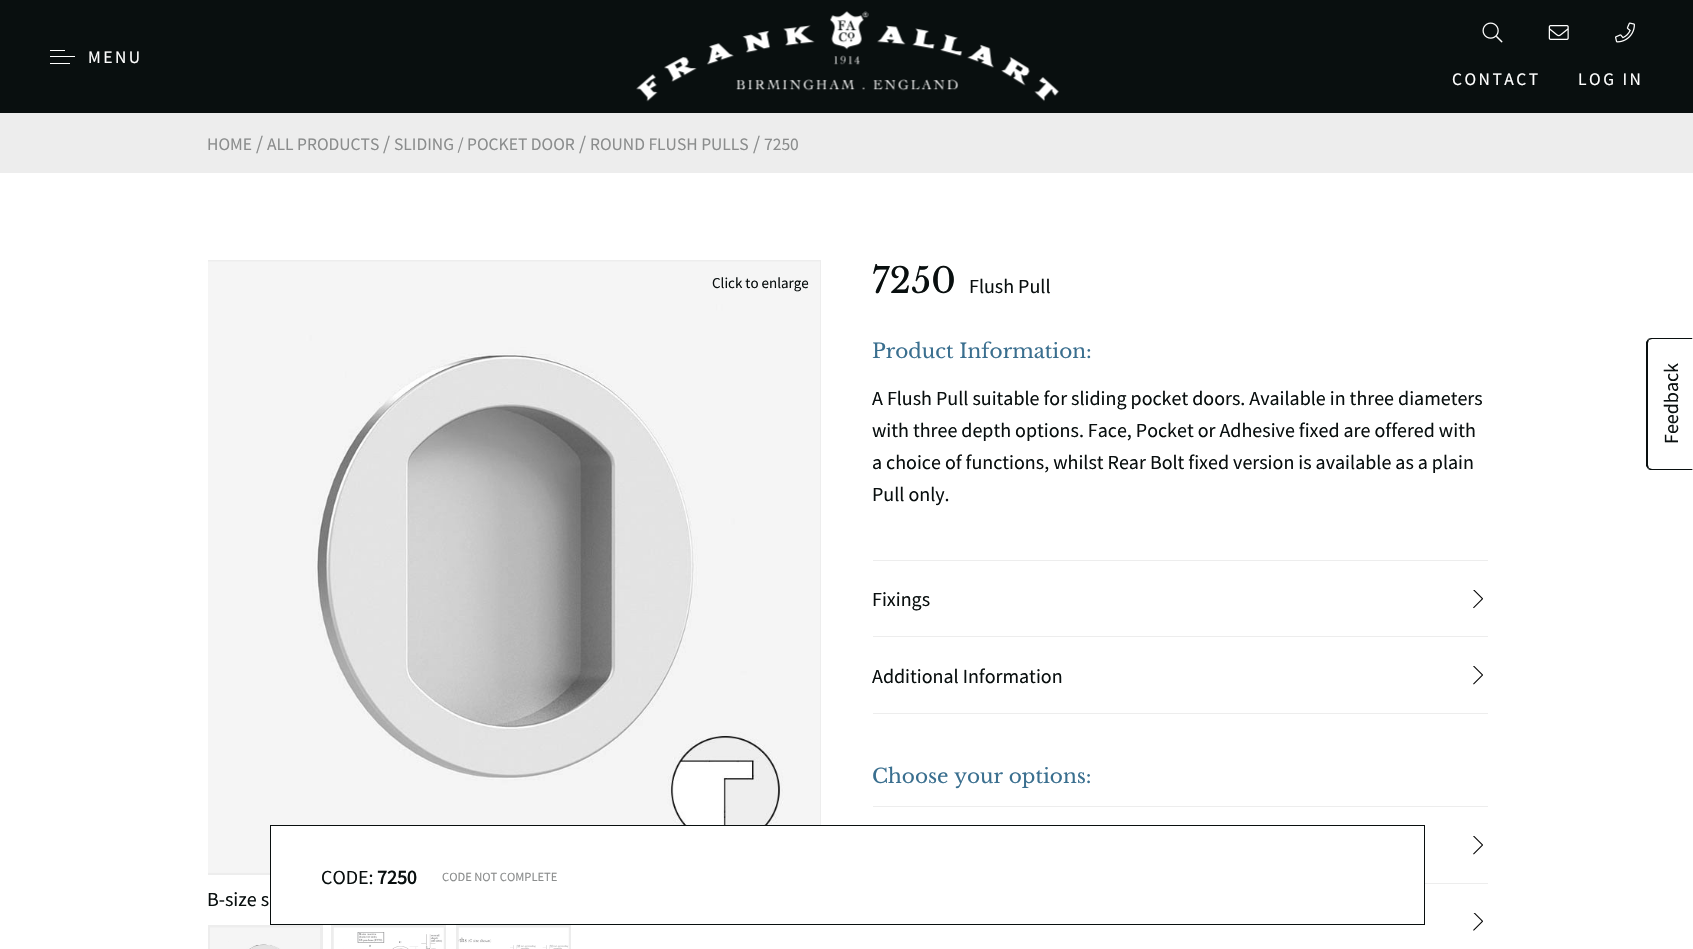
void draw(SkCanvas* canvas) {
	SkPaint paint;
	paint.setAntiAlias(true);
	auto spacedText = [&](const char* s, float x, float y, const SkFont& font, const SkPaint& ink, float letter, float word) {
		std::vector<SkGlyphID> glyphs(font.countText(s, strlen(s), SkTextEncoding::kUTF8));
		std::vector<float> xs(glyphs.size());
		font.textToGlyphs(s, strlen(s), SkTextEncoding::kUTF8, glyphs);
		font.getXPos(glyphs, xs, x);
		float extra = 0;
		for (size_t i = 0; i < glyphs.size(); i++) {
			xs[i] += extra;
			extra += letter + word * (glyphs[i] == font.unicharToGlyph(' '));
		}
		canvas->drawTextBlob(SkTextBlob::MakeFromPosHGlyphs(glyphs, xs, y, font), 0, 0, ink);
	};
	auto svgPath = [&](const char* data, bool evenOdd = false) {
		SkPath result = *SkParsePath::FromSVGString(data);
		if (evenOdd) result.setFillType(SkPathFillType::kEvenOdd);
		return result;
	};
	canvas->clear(0xffffffff);
	paint.setColor(0xff090f0f);
	canvas->drawRect(SkRect::MakeXYWH(0, 0, 1693, 113), paint);
	paint.setColor(0xffffffff);
	canvas->drawRect(SkRect::MakeXYWH(50, 56, 25, 1), paint);
	canvas->drawRect(SkRect::MakeXYWH(50, 50, 15, 1), paint);
	canvas->drawRect(SkRect::MakeXYWH(50, 63, 20, 1), paint);
	SkFont f1(fontMgr->matchFamilyStyle("Source Sans Pro", SkFontStyle::Normal()), 17.5);
	f1.setSubpixel(true);
	spacedText("MENU", 88, 63, f1, paint, 2.5, 0);
	canvas->drawImageRect(SkImages::DeferredFromEncodedData(SkData::MakeFromFileName("img1.png")), SkRect::MakeXYWH(636, 11, 423, 91), SkSamplingOptions());
	canvas->drawImageRect(SkImages::DeferredFromEncodedData(SkData::MakeFromFileName("img2.png")), SkRect::MakeXYWH(1482, 22, 21, 21), SkSamplingOptions());
	canvas->drawImageRect(SkImages::DeferredFromEncodedData(SkData::MakeFromFileName("img3.png")), SkRect::MakeXYWH(1548, 25, 21, 15), SkSamplingOptions());
	canvas->drawImageRect(SkImages::DeferredFromEncodedData(SkData::MakeFromFileName("img4.png")), SkRect::MakeXYWH(1615, 22, 20, 21), SkSamplingOptions());
	spacedText("CONTACT", 1452, 85, f1, paint, 2.5, 0);
	spacedText("LOG IN", 1578, 85, f1, paint, 2.5, 0);
	paint.setColor(0xffededed);
	canvas->drawRect(SkRect::MakeXYWH(0, 113, 1693, 60), paint);
	paint.setColor(0xff8b8d8d);
	canvas->drawString("HOME", 207, 150, f1, paint);
	SkFont f2(fontMgr->matchFamilyStyle("Source Sans Pro", SkFontStyle::Normal()), 20);
	f2.setSubpixel(true);
	canvas->drawString("/", 256, 150, f2, paint);
	canvas->drawString("ALL PRODUCTS", 267, 150, f1, paint);
	canvas->drawString("/", 383, 150, f2, paint);
	canvas->drawString("SLIDING / POCKET DOOR", 394, 150, f1, paint);
	canvas->drawString("/", 579, 150, f2, paint);
	canvas->drawString("ROUND FLUSH PULLS", 590, 150, f1, paint);
	canvas->drawString("/", 753, 150, f2, paint);
	canvas->drawString("7250", 764, 150, f1, paint);
	paint.setColor(0xffededed);
	canvas->drawRect(SkRect::MakeXYWH(208, 260, 613, 615), paint);
	canvas->drawImageRect(SkImages::DeferredFromEncodedData(SkData::MakeFromFileName("img5.png")), SkRect::MakeXYWH(208, 261, 612, 612), SkSamplingOptions());
	SkFont f3(fontMgr->matchFamilyStyle("Source Sans Pro", SkFontStyle::Normal()), 15);
	f3.setSubpixel(true);
	paint.setColor(0xff090f0f);
	canvas->drawString("Click to enlarge", 712, 288, f3, paint);
	canvas->drawString("B-size s", 207, 906, f2, paint);
	paint.setStroke(true);
	paint.setStrokeWidth(3);
	paint.setColor(0xffededed);
	canvas->drawRect(SkRect::MakeXYWH(209.5, 926.5, 112, 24), paint);
	canvas->drawImageRect(SkImages::DeferredFromEncodedData(SkData::MakeFromFileName("img6.png")), SkRect::MakeXYWH(210, 927, 110, 22), SkSamplingOptions());
	canvas->drawRect(SkRect::MakeXYWH(332.5, 926.5, 112, 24), paint);
	canvas->drawImageRect(SkImages::DeferredFromEncodedData(SkData::MakeFromFileName("img7.png")), SkRect::MakeXYWH(333, 927, 111, 22), SkSamplingOptions());
	canvas->drawRect(SkRect::MakeXYWH(457.5, 926.5, 112, 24), paint);
	canvas->drawImageRect(SkImages::DeferredFromEncodedData(SkData::MakeFromFileName("img8.png")), SkRect::MakeXYWH(458, 927, 111, 22), SkSamplingOptions());
	SkFont f4(fontMgr->matchFamilyStyle("Libre Baskerville", SkFontStyle::Normal()), 35);
	f4.setSubpixel(true);
	paint.setStroke(false);
	paint.setColor(0xff090f0f);
	canvas->drawString("7250", 872, 293, f4, paint);
	canvas->drawString("Flush Pull", 969, 293, f2, paint);
	SkFont f5(fontMgr->matchFamilyStyle("Libre Baskerville", SkFontStyle::Normal()), 20);
	f5.setSubpixel(true);
	paint.setColor(0xff3a6f8f);
	canvas->drawString("Product Information:", 872, 358, f5, paint);
	paint.setColor(0xff090f0f);
	canvas->drawString("A Flush Pull suitable for sliding pocket doors. Available in three diameters", 872, 405, f2, paint);
	canvas->drawString("with three depth options. Face, Pocket or Adhesive fixed are offered with", 872, 437, f2, paint);
	canvas->drawString("a choice of functions, whilst Rear Bolt fixed version is available as a plain", 872, 469, f2, paint);
	canvas->drawString("Pull only.", 872, 501, f2, paint);
	paint.setColor(0xffededed);
	canvas->drawRect(SkRect::MakeXYWH(873, 560, 615, 1), paint);
	canvas->drawRect(SkRect::MakeXYWH(873, 636, 615, 1), paint);
	paint.setColor(0xff090f0f);
	canvas->drawString("Fixings", 872, 606, f2, paint);
	canvas->drawImageRect(SkImages::DeferredFromEncodedData(SkData::MakeFromFileName("img9.png")), SkRect::MakeXYWH(1473, 590, 10, 19), SkSamplingOptions());
	paint.setColor(0xffededed);
	canvas->drawRect(SkRect::MakeXYWH(873, 713, 615, 1), paint);
	paint.setColor(0xff090f0f);
	canvas->drawString("Additional Information", 872, 683, f2, paint);
	canvas->drawImageRect(SkImages::DeferredFromEncodedData(SkData::MakeFromFileName("img10.png")), SkRect::MakeXYWH(1473, 666, 10, 19), SkSamplingOptions());
	paint.setColor(0xff3a6f8f);
	canvas->drawString("Choose your options:", 872, 783, f5, paint);
	paint.setColor(0xffededed);
	canvas->drawRect(SkRect::MakeXYWH(873, 806, 615, 1), paint);
	canvas->drawRect(SkRect::MakeXYWH(1425, 883, 63, 1), paint);
	canvas->drawImageRect(SkImages::DeferredFromEncodedData(SkData::MakeFromFileName("img10.png")), SkRect::MakeXYWH(1473, 836, 10, 19), SkSamplingOptions());
	canvas->drawImageRect(SkImages::DeferredFromEncodedData(SkData::MakeFromFileName("img11.png")), SkRect::MakeXYWH(1473, 913, 10, 18), SkSamplingOptions());
	paint.setColor(0xffffffff);
	canvas->drawRect(SkRect::MakeXYWH(271, 826, 550, 49), paint);
	paint.setStroke(true);
	paint.setStrokeWidth(1);
	paint.setColor(0xff090f0f);
	canvas->drawRect(SkRect::MakeXYWH(270.5, 825.5, 1154, 99), paint);
	paint.setStroke(false);
	canvas->drawString("CODE:", 321, 884, f2, paint);
	SkFont f6(fontMgr->matchFamilyStyle("Source Sans Pro", SkFontStyle::Bold()), 20);
	f6.setSubpixel(true);
	canvas->drawString("7250", 377, 884, f6, paint);
	SkFont f7(fontMgr->matchFamilyStyle("Source Sans Pro", SkFontStyle::Normal()), 12.5);
	f7.setSubpixel(true);
	paint.setColor(0xff8b8d8d);
	canvas->drawString("CODE NOT COMPLETE", 442, 881, f7, paint);
	paint.setColor(0xff090f0f);
	canvas->drawPath(svgPath("M1692 469L1693 470H1652C1651 470 1649 470 1648 469L1649 468C1650 468 1651 469 1652 469Z"), paint);
	canvas->drawPath(svgPath("M1646 342L1648 339L1649 340L1648 343V465L1649 468L1648 469L1646 466Z"), paint);
	canvas->drawPath(svgPath("M1693 338H1652C1651 338 1649 338 1648 339L1649 340C1650 340 1651 339 1652 339H1692Z"), paint);
	paint.setColor(0xffffffff);
	canvas->drawPath(svgPath("M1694 470L1692 469V339L1693 338H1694Z"), paint);
	paint.setColor(0xff090f0f);
	canvas->save();
	canvas->rotate(-90, 1678, 444);
	canvas->drawString("Feedback", 1678, 444, f2, paint);
	canvas->restore();
}
